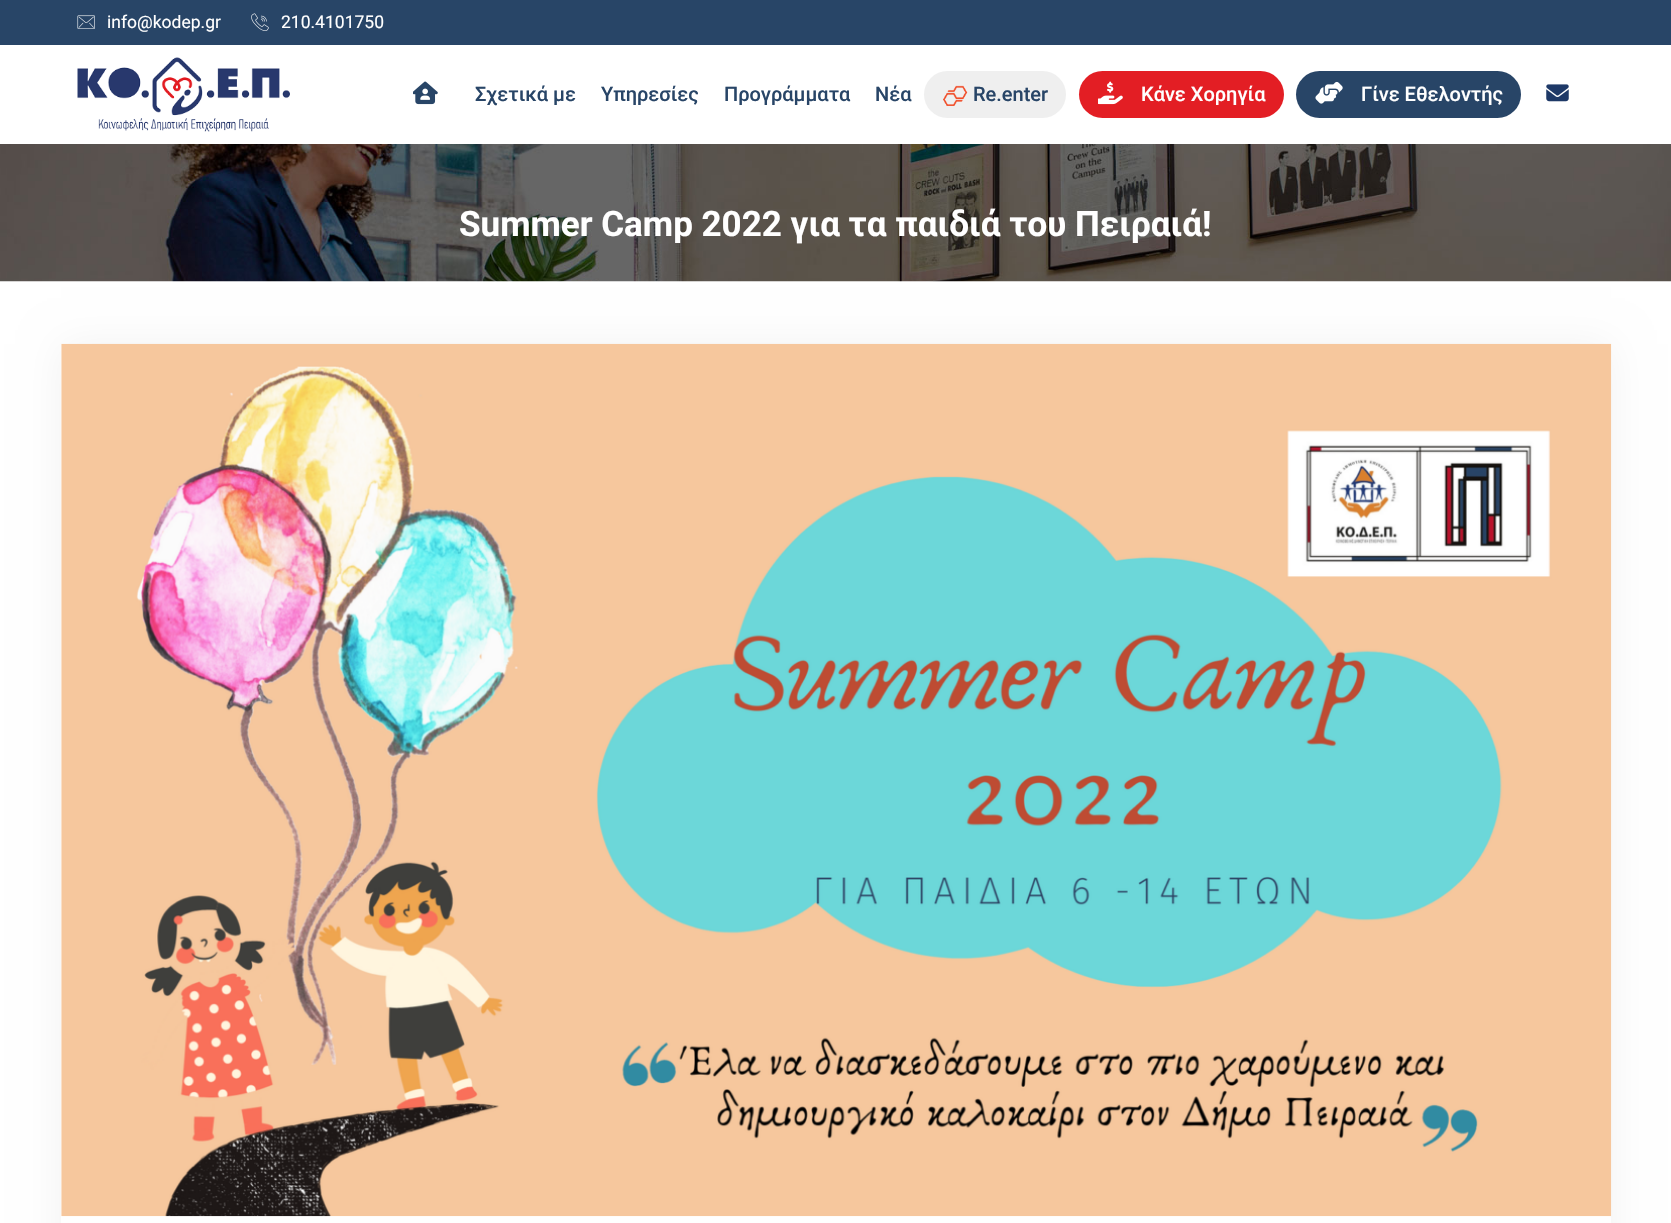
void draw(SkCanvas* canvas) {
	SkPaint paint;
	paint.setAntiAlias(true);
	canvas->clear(0xffffffff);
	paint.setColor(0xff284567);
	canvas->drawRect(SkRect::MakeXYWH(0, 0, 1671, 45), paint);
	canvas->drawImageRect(SkImages::DeferredFromEncodedData(SkData::MakeFromFileName("img1.png")), SkRect::MakeXYWH(77, 15, 18, 14), SkSamplingOptions());
	SkFont f1(fontMgr->matchFamilyStyle("Roboto", SkFontStyle::Normal()), 17.5);
	f1.setSubpixel(true);
	paint.setColor(0xffffffff);
	canvas->drawString("info@kodep.gr", 107, 28, f1, paint);
	canvas->drawImageRect(SkImages::DeferredFromEncodedData(SkData::MakeFromFileName("img2.png")), SkRect::MakeXYWH(251, 13, 18, 18), SkSamplingOptions());
	canvas->drawString("210.4101750", 281, 28, f1, paint);
	canvas->drawImageRect(SkImages::DeferredFromEncodedData(SkData::MakeFromFileName("img3.png")), SkRect::MakeXYWH(77, 57, 213, 75), SkSamplingOptions());
	canvas->drawImageRect(SkImages::DeferredFromEncodedData(SkData::MakeFromFileName("img4.png")), SkRect::MakeXYWH(413, 81, 25, 24), SkSamplingOptions());
	SkFont f2(fontMgr->matchFamilyStyle("Roboto", SkFontStyle(500, SkFontStyle::kNormal_Width, SkFontStyle::kUpright_Slant)), 20);
	f2.setSubpixel(true);
	paint.setColor(0xff284567);
	canvas->drawString("Σχετικά με", 475, 101, f2, paint);
	canvas->drawString("Υπηρεσίες", 601, 101, f2, paint);
	canvas->drawString("Προγράμματα", 724, 101, f2, paint);
	canvas->drawString("Νέα", 875, 101, f2, paint);
	paint.setColor(0xffefefef);
	canvas->drawRoundRect(SkRect::MakeXYWH(924, 71, 142, 47), 23.5, 23.5, paint);
	canvas->drawImageRect(SkImages::DeferredFromEncodedData(SkData::MakeFromFileName("img5.png")), SkRect::MakeXYWH(943, 85, 25, 21), SkSamplingOptions());
	paint.setColor(0xff284567);
	canvas->drawString("Re.enter", 973, 101, f2, paint);
	paint.setColor(0xffe31e24);
	canvas->drawRoundRect(SkRect::MakeXYWH(1079, 71, 205, 47), 23.5, 23.5, paint);
	canvas->drawImageRect(SkImages::DeferredFromEncodedData(SkData::MakeFromFileName("img6.png")), SkRect::MakeXYWH(1098, 81, 25, 24), SkSamplingOptions());
	paint.setColor(0xffffffff);
	canvas->drawString("Κάνε Χορηγία", 1141, 101, f2, paint);
	paint.setColor(0xff284567);
	canvas->drawRoundRect(SkRect::MakeXYWH(1296, 71, 225, 47), 23.5, 23.5, paint);
	canvas->drawImageRect(SkImages::DeferredFromEncodedData(SkData::MakeFromFileName("img7.png")), SkRect::MakeXYWH(1315, 81, 28, 23), SkSamplingOptions());
	paint.setColor(0xffffffff);
	canvas->drawString("Γίνε Εθελοντής", 1361, 101, f2, paint);
	canvas->drawImageRect(SkImages::DeferredFromEncodedData(SkData::MakeFromFileName("img8.png")), SkRect::MakeXYWH(1546, 84, 23, 18), SkSamplingOptions());
	canvas->drawImageRect(SkImages::DeferredFromEncodedData(SkData::MakeFromFileName("img9.png")), SkRect::MakeXYWH(0, 144, 1671, 138), SkSamplingOptions());
	SkFont f3(fontMgr->matchFamilyStyle("Roboto", SkFontStyle::Bold()), 35);
	f3.setSubpixel(true);
	canvas->drawString("Summer Camp 2022 για τα παιδιά του Πειραιά!", 459, 236, f3, paint);
	paint.setColor(0x0d000000);
	paint.setMaskFilter(SkMaskFilter::MakeBlur(kNormal_SkBlurStyle, 19));
	canvas->drawRect(SkRect::MakeXYWH(61, 344, 1550, 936), paint);
	paint.setMaskFilter(nullptr);
	paint.setColor(0xffffffff);
	canvas->drawRect(SkRect::MakeXYWH(61, 344, 1550, 879), paint);
	canvas->drawImageRect(SkImages::DeferredFromEncodedData(SkData::MakeFromFileName("img10.png")), SkRect::MakeXYWH(61, 343, 1551, 874), SkSamplingOptions());
}
